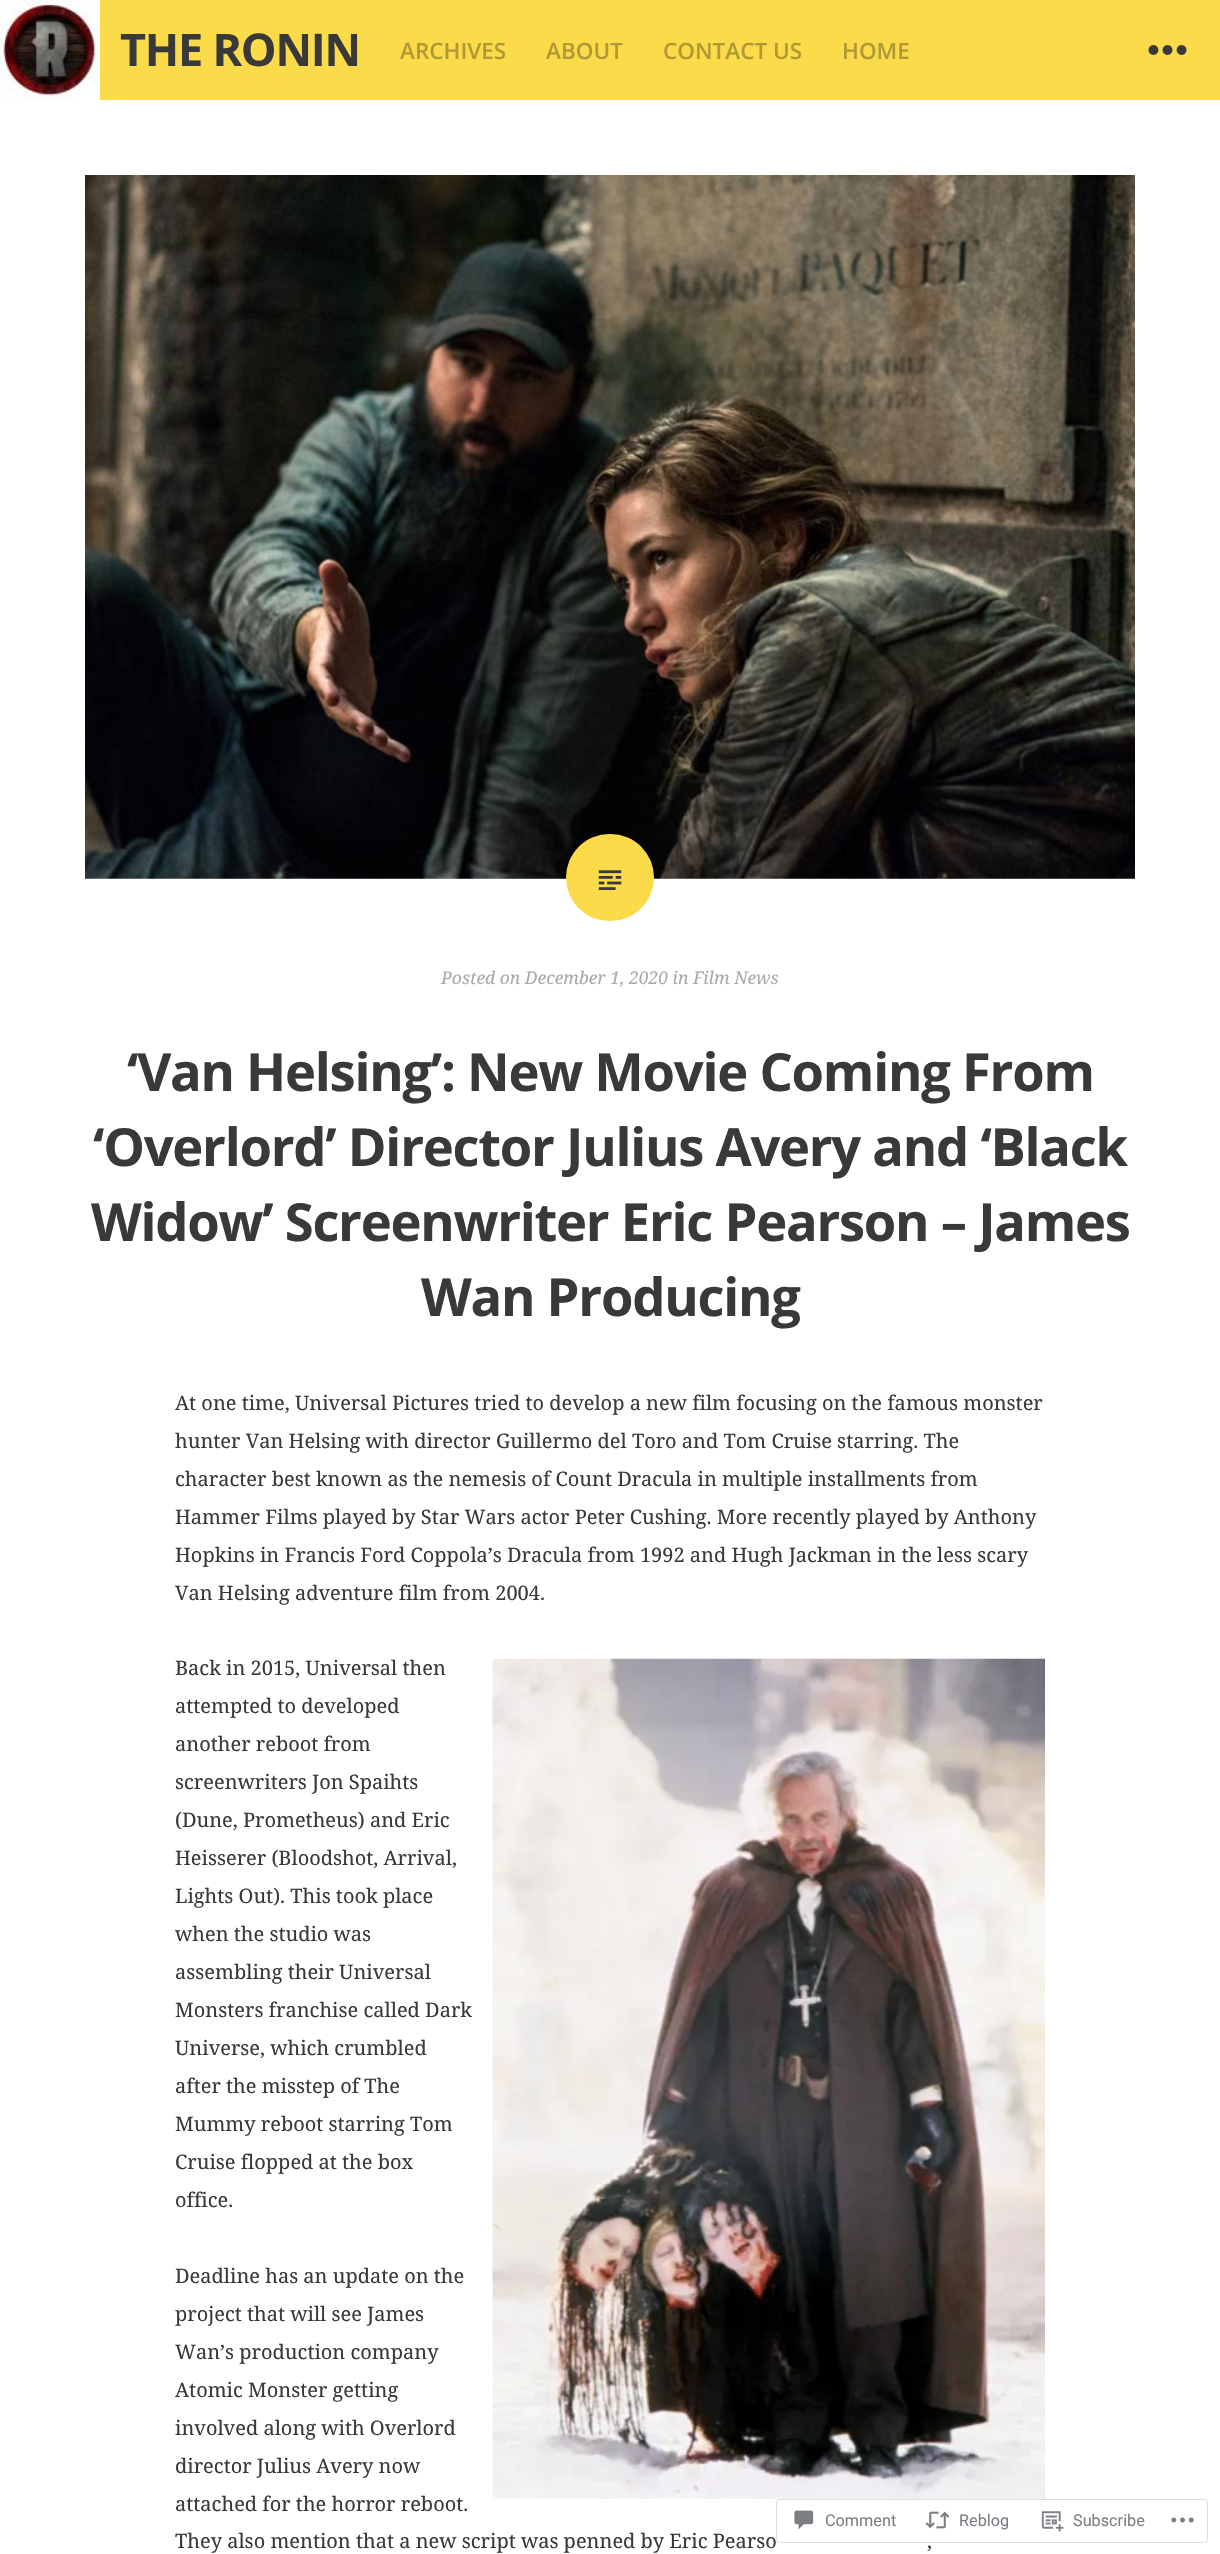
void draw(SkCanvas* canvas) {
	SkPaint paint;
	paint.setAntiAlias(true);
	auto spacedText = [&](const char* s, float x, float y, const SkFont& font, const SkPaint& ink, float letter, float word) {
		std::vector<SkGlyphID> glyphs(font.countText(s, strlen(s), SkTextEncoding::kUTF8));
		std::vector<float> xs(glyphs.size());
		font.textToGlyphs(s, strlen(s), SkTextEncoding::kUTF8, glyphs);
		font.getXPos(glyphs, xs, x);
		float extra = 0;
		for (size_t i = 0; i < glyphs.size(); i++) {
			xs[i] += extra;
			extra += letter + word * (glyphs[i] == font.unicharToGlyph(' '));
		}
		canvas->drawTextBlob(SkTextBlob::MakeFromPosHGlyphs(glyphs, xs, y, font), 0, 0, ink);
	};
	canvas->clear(0xffffffff);
	paint.setColor(0xfffbdb4a);
	canvas->drawRect(SkRect::MakeXYWH(100, 0, 1120, 100), paint);
	canvas->drawImageRect(SkImages::DeferredFromEncodedData(SkData::MakeFromFileName("img1.png")), SkRect::MakeXYWH(0, 0, 100, 100), SkSamplingOptions());
	SkFont f1(fontMgr->matchFamilyStyle("Open Sans", SkFontStyle::Bold()), 45);
	f1.setSubpixel(true);
	paint.setColor(0xff393939);
	spacedText("THE RONIN", 120, 66, f1, paint, -1.25, 0);
	SkFont f2(fontMgr->matchFamilyStyle("Open Sans", SkFontStyle(600, SkFontStyle::kNormal_Width, SkFontStyle::kUpright_Slant)), 22.5);
	f2.setSubpixel(true);
	paint.setColor(0xffb09934);
	canvas->drawString("ARCHIVES", 400, 59, f2, paint);
	canvas->drawString("ABOUT", 546, 59, f2, paint);
	canvas->drawString("CONTACT US", 663, 59, f2, paint);
	canvas->drawString("HOME", 842, 59, f2, paint);
	canvas->drawImageRect(SkImages::DeferredFromEncodedData(SkData::MakeFromFileName("img2.png")), SkRect::MakeXYWH(1148, 45, 39, 10), SkSamplingOptions());
	canvas->drawImageRect(SkImages::DeferredFromEncodedData(SkData::MakeFromFileName("img3.png")), SkRect::MakeXYWH(85, 175, 1050, 704), SkSamplingOptions());
	paint.setColor(0xfffbdb4a);
	canvas->drawRoundRect(SkRect::MakeXYWH(566, 834, 88, 87), 43.5, 43.5, paint);
	canvas->drawImageRect(SkImages::DeferredFromEncodedData(SkData::MakeFromFileName("img4.png")), SkRect::MakeXYWH(598, 870, 24, 20), SkSamplingOptions());
	SkFont f3(fontMgr->matchFamilyStyle("Noto Serif", SkFontStyle::Italic()), 17.5);
	f3.setSubpixel(true);
	paint.setColor(0xffaaaaaa);
	canvas->drawString("Posted on December 1, 2020 in Film News", 441, 984, f3, paint);
	SkFont f4(fontMgr->matchFamilyStyle("Open Sans", SkFontStyle::Bold()), 52.5);
	f4.setSubpixel(true);
	paint.setColor(0xff393939);
	spacedText("‘Van Helsing’: New Movie Coming From", 127, 1091, f4, paint, -1.25, 0);
	spacedText("‘Overlord’ Director Julius Avery and ‘Black", 93, 1166, f4, paint, -1.25, 0);
	spacedText("Widow’ Screenwriter Eric Pearson – James", 91, 1241, f4, paint, -1.25, 0);
	spacedText("Wan Producing", 421, 1316, f4, paint, -1.25, 0);
	SkFont f5(fontMgr->matchFamilyStyle("Noto Serif", SkFontStyle::Normal()), 20);
	f5.setSubpixel(true);
	canvas->drawString("At one time, Universal Pictures tried to develop a new film focusing on the famous monster", 175, 1410, f5, paint);
	canvas->drawString("hunter Van Helsing with director Guillermo del Toro and Tom Cruise starring. The", 175, 1448, f5, paint);
	canvas->drawString("character best known as the nemesis of Count Dracula in multiple installments from", 175, 1486, f5, paint);
	canvas->drawString("Hammer Films played by Star Wars actor Peter Cushing. More recently played by Anthony", 175, 1524, f5, paint);
	canvas->drawString("Hopkins in Francis Ford Coppola’s Dracula from 1992 and Hugh Jackman in the less scary", 175, 1562, f5, paint);
	canvas->drawString("Van Helsing adventure film from 2004.", 175, 1600, f5, paint);
	canvas->drawString("Back in 2015, Universal then", 175, 1675, f5, paint);
	canvas->drawString("attempted to developed", 175, 1713, f5, paint);
	canvas->drawString("another reboot from", 175, 1751, f5, paint);
	canvas->drawString("screenwriters Jon Spaihts", 175, 1789, f5, paint);
	canvas->drawString("(Dune, Prometheus) and Eric", 175, 1827, f5, paint);
	canvas->drawString("Heisserer (Bloodshot, Arrival,", 175, 1865, f5, paint);
	canvas->drawString("Lights Out). This took place", 175, 1903, f5, paint);
	canvas->drawString("when the studio was", 175, 1941, f5, paint);
	canvas->drawString("assembling their Universal", 175, 1979, f5, paint);
	canvas->drawString("Monsters franchise called Dark", 175, 2017, f5, paint);
	canvas->drawString("Universe, which crumbled", 175, 2055, f5, paint);
	canvas->drawString("after the misstep of The", 175, 2093, f5, paint);
	canvas->drawString("Mummy reboot starring Tom", 175, 2131, f5, paint);
	canvas->drawString("Cruise flopped at the box", 175, 2169, f5, paint);
	canvas->drawString("office.", 175, 2207, f5, paint);
	canvas->drawImageRect(SkImages::DeferredFromEncodedData(SkData::MakeFromFileName("img5.png")), SkRect::MakeXYWH(492, 1658, 553, 841), SkSamplingOptions());
	canvas->drawString("Deadline has an update on the", 175, 2283, f5, paint);
	canvas->drawString("project that will see James", 175, 2321, f5, paint);
	canvas->drawString("Wan’s production company", 175, 2359, f5, paint);
	canvas->drawString("Atomic Monster getting", 175, 2397, f5, paint);
	canvas->drawString("involved along with Overlord", 175, 2435, f5, paint);
	canvas->drawString("director Julius Avery now", 175, 2473, f5, paint);
	canvas->drawString("attached for the horror reboot.", 175, 2511, f5, paint);
	canvas->drawString("They also mention that a new script was penned by Eric Pearso", 175, 2548, f5, paint);
	canvas->drawString(",", 927, 2548, f5, paint);
	paint.setStroke(true);
	paint.setStrokeWidth(1);
	paint.setColor(0xfadcdcde);
	canvas->drawRoundRect(SkRect::MakeXYWH(776.5, 2499.5, 431, 43), 3.5, 3.5, paint);
	canvas->drawImageRect(SkImages::DeferredFromEncodedData(SkData::MakeFromFileName("img6.png")), SkRect::MakeXYWH(794, 2510, 20, 20), SkSamplingOptions());
	SkFont f6(fontMgr->matchFamilyStyle("Roboto", SkFontStyle::Normal()), 16.25);
	f6.setSubpixel(true);
	paint.setStroke(false);
	paint.setColor(0xff7b7f85);
	canvas->drawString("Comment", 825, 2526, f6, paint);
	canvas->drawImageRect(SkImages::DeferredFromEncodedData(SkData::MakeFromFileName("img7.png")), SkRect::MakeXYWH(925, 2511, 25, 18), SkSamplingOptions());
	canvas->drawString("Reblog", 959, 2526, f6, paint);
	canvas->drawImageRect(SkImages::DeferredFromEncodedData(SkData::MakeFromFileName("img8.png")), SkRect::MakeXYWH(1041, 2511, 23, 21), SkSamplingOptions());
	canvas->drawString("Subscribe", 1073, 2526, f6, paint);
	canvas->drawImageRect(SkImages::DeferredFromEncodedData(SkData::MakeFromFileName("img9.png")), SkRect::MakeXYWH(1171, 2517, 23, 6), SkSamplingOptions());
}
